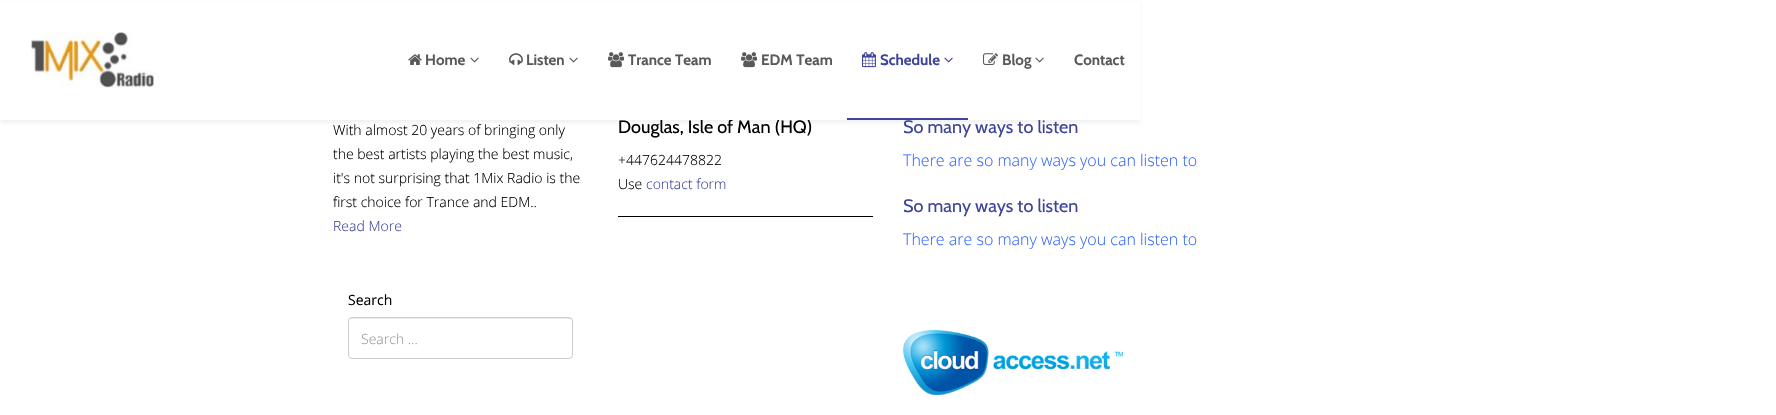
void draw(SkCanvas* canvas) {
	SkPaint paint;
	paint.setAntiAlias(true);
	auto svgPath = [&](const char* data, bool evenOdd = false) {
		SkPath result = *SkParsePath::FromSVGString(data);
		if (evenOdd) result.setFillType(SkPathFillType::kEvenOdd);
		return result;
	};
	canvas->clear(0xffffffff);
	paint.setColor(0x0d000000);
	paint.setMaskFilter(SkMaskFilter::MakeBlur(kNormal_SkBlurStyle, 1.5));
	canvas->drawRect(SkRect::MakeXYWH(0, 3, 1140, 120), paint);
	paint.setMaskFilter(nullptr);
	SkFont f1(fontMgr->matchFamilyStyle("Cabin", SkFontStyle::Normal()), 18);
	f1.setSubpixel(true);
	paint.setColor(0xff000000);
	canvas->drawString("Douglas, Isle of Man (HQ)", 618, 133, f1, paint);
	paint.setColor(0xff3d449a);
	canvas->drawString("So many ways to listen", 903, 133, f1, paint);
	paint.setColor(0xffffffff);
	canvas->drawRect(SkRect::MakeXYWH(0, 2, 1140, 118), paint);
	canvas->drawImageRect(SkImages::DeferredFromEncodedData(SkData::MakeFromFileName("img1.png")), SkRect::MakeXYWH(31, 32, 124, 56), SkSamplingOptions());
	canvas->drawImageRect(SkImages::DeferredFromEncodedData(SkData::MakeFromFileName("img2.png")), SkRect::MakeXYWH(408, 54, 14, 11), SkSamplingOptions());
	SkFont f2(fontMgr->matchFamilyStyle("Cabin", SkFontStyle::Bold()), 15);
	f2.setSubpixel(true);
	paint.setColor(0xff595959);
	canvas->drawString("Home", 425, 65, f2, paint);
	canvas->drawImageRect(SkImages::DeferredFromEncodedData(SkData::MakeFromFileName("img3.png")), SkRect::MakeXYWH(470, 57, 9, 6), SkSamplingOptions());
	canvas->drawImageRect(SkImages::DeferredFromEncodedData(SkData::MakeFromFileName("img4.png")), SkRect::MakeXYWH(509, 53, 14, 12), SkSamplingOptions());
	canvas->drawString("Listen", 526, 65, f2, paint);
	canvas->drawImageRect(SkImages::DeferredFromEncodedData(SkData::MakeFromFileName("img3.png")), SkRect::MakeXYWH(569, 57, 9, 6), SkSamplingOptions());
	canvas->drawImageRect(SkImages::DeferredFromEncodedData(SkData::MakeFromFileName("img5.png")), SkRect::MakeXYWH(608, 52, 17, 16), SkSamplingOptions());
	canvas->drawString("Trance Team", 628, 65, f2, paint);
	canvas->drawImageRect(SkImages::DeferredFromEncodedData(SkData::MakeFromFileName("img5.png")), SkRect::MakeXYWH(741, 52, 17, 16), SkSamplingOptions());
	canvas->drawString("EDM Team", 761, 65, f2, paint);
	paint.setColor(0xff3d449a);
	canvas->drawRect(SkRect::MakeXYWH(847, 118, 121, 2), paint);
	canvas->drawImageRect(SkImages::DeferredFromEncodedData(SkData::MakeFromFileName("img6.png")), SkRect::MakeXYWH(862, 52, 14, 16), SkSamplingOptions());
	canvas->drawString("Schedule", 880, 65, f2, paint);
	canvas->drawImageRect(SkImages::DeferredFromEncodedData(SkData::MakeFromFileName("img7.png")), SkRect::MakeXYWH(944, 57, 9, 6), SkSamplingOptions());
	canvas->drawImageRect(SkImages::DeferredFromEncodedData(SkData::MakeFromFileName("img8.png")), SkRect::MakeXYWH(983, 53, 15, 12), SkSamplingOptions());
	paint.setColor(0xff595959);
	canvas->drawString("Blog", 1002, 65, f2, paint);
	canvas->drawImageRect(SkImages::DeferredFromEncodedData(SkData::MakeFromFileName("img3.png")), SkRect::MakeXYWH(1035, 57, 9, 6), SkSamplingOptions());
	canvas->drawString("Contact", 1074, 65, f2, paint);
	SkFont f3(fontMgr->matchFamilyStyle("Open Sans", SkFontStyle(300, SkFontStyle::kNormal_Width, SkFontStyle::kUpright_Slant)), 14);
	f3.setSubpixel(true);
	paint.setColor(0xff000000);
	canvas->drawString("With almost 20 years of bringing only", 333, 135, f3, paint);
	canvas->drawString("the best artists playing the best music,", 333, 159, f3, paint);
	canvas->drawString("it's not surprising that 1Mix Radio is the", 333, 183, f3, paint);
	canvas->drawString("first choice for Trance and EDM..", 333, 207, f3, paint);
	paint.setColor(0xff3d449a);
	canvas->drawString("Read More", 333, 231, f3, paint);
	SkFont f4(fontMgr->matchFamilyStyle("Open Sans", SkFontStyle::Normal()), 14);
	f4.setSubpixel(true);
	paint.setColor(0xff000000);
	canvas->drawString("Search", 348, 305, f4, paint);
	paint.setColor(0xffececec);
	canvas->drawPath(svgPath("M352 319H569C571 319 572 320 572 322V321C572 319 571 318 569 318H352C350 318 349 319 349 321V322C349 320 350 319 352 319Z"), paint);
	paint.setStroke(true);
	paint.setStrokeWidth(1);
	paint.setColor(0xffcccccc);
	canvas->drawRoundRect(SkRect::MakeXYWH(348.5, 317.5, 224, 41), 3.5, 3.5, paint);
	paint.setStroke(false);
	paint.setColor(0xff999999);
	canvas->drawString("Search ...", 361, 344, f3, paint);
	paint.setColor(0xff000000);
	canvas->drawString("+447624478822", 618, 165, f3, paint);
	canvas->drawString("Use", 618, 189, f3, paint);
	paint.setColor(0xff3d449a);
	canvas->drawString("contact form", 646, 189, f3, paint);
	paint.setColor(0xff000000);
	canvas->drawRect(SkRect::MakeXYWH(618, 216, 255, 1), paint);
	SkFont f5(fontMgr->matchFamilyStyle("Open Sans", SkFontStyle(300, SkFontStyle::kNormal_Width, SkFontStyle::kUpright_Slant)), 16);
	f5.setSubpixel(true);
	paint.setColor(0xff3366ff);
	canvas->drawString("There are so many ways you can listen to", 903, 166, f5, paint);
	paint.setColor(0xff3d449a);
	canvas->drawString("So many ways to listen", 903, 212, f1, paint);
	paint.setColor(0xff3366ff);
	canvas->drawString("There are so many ways you can listen to", 903, 245, f5, paint);
	canvas->drawImageRect(SkImages::DeferredFromEncodedData(SkData::MakeFromFileName("img9.png")), SkRect::MakeXYWH(903, 329, 220, 66), SkSamplingOptions());
}
